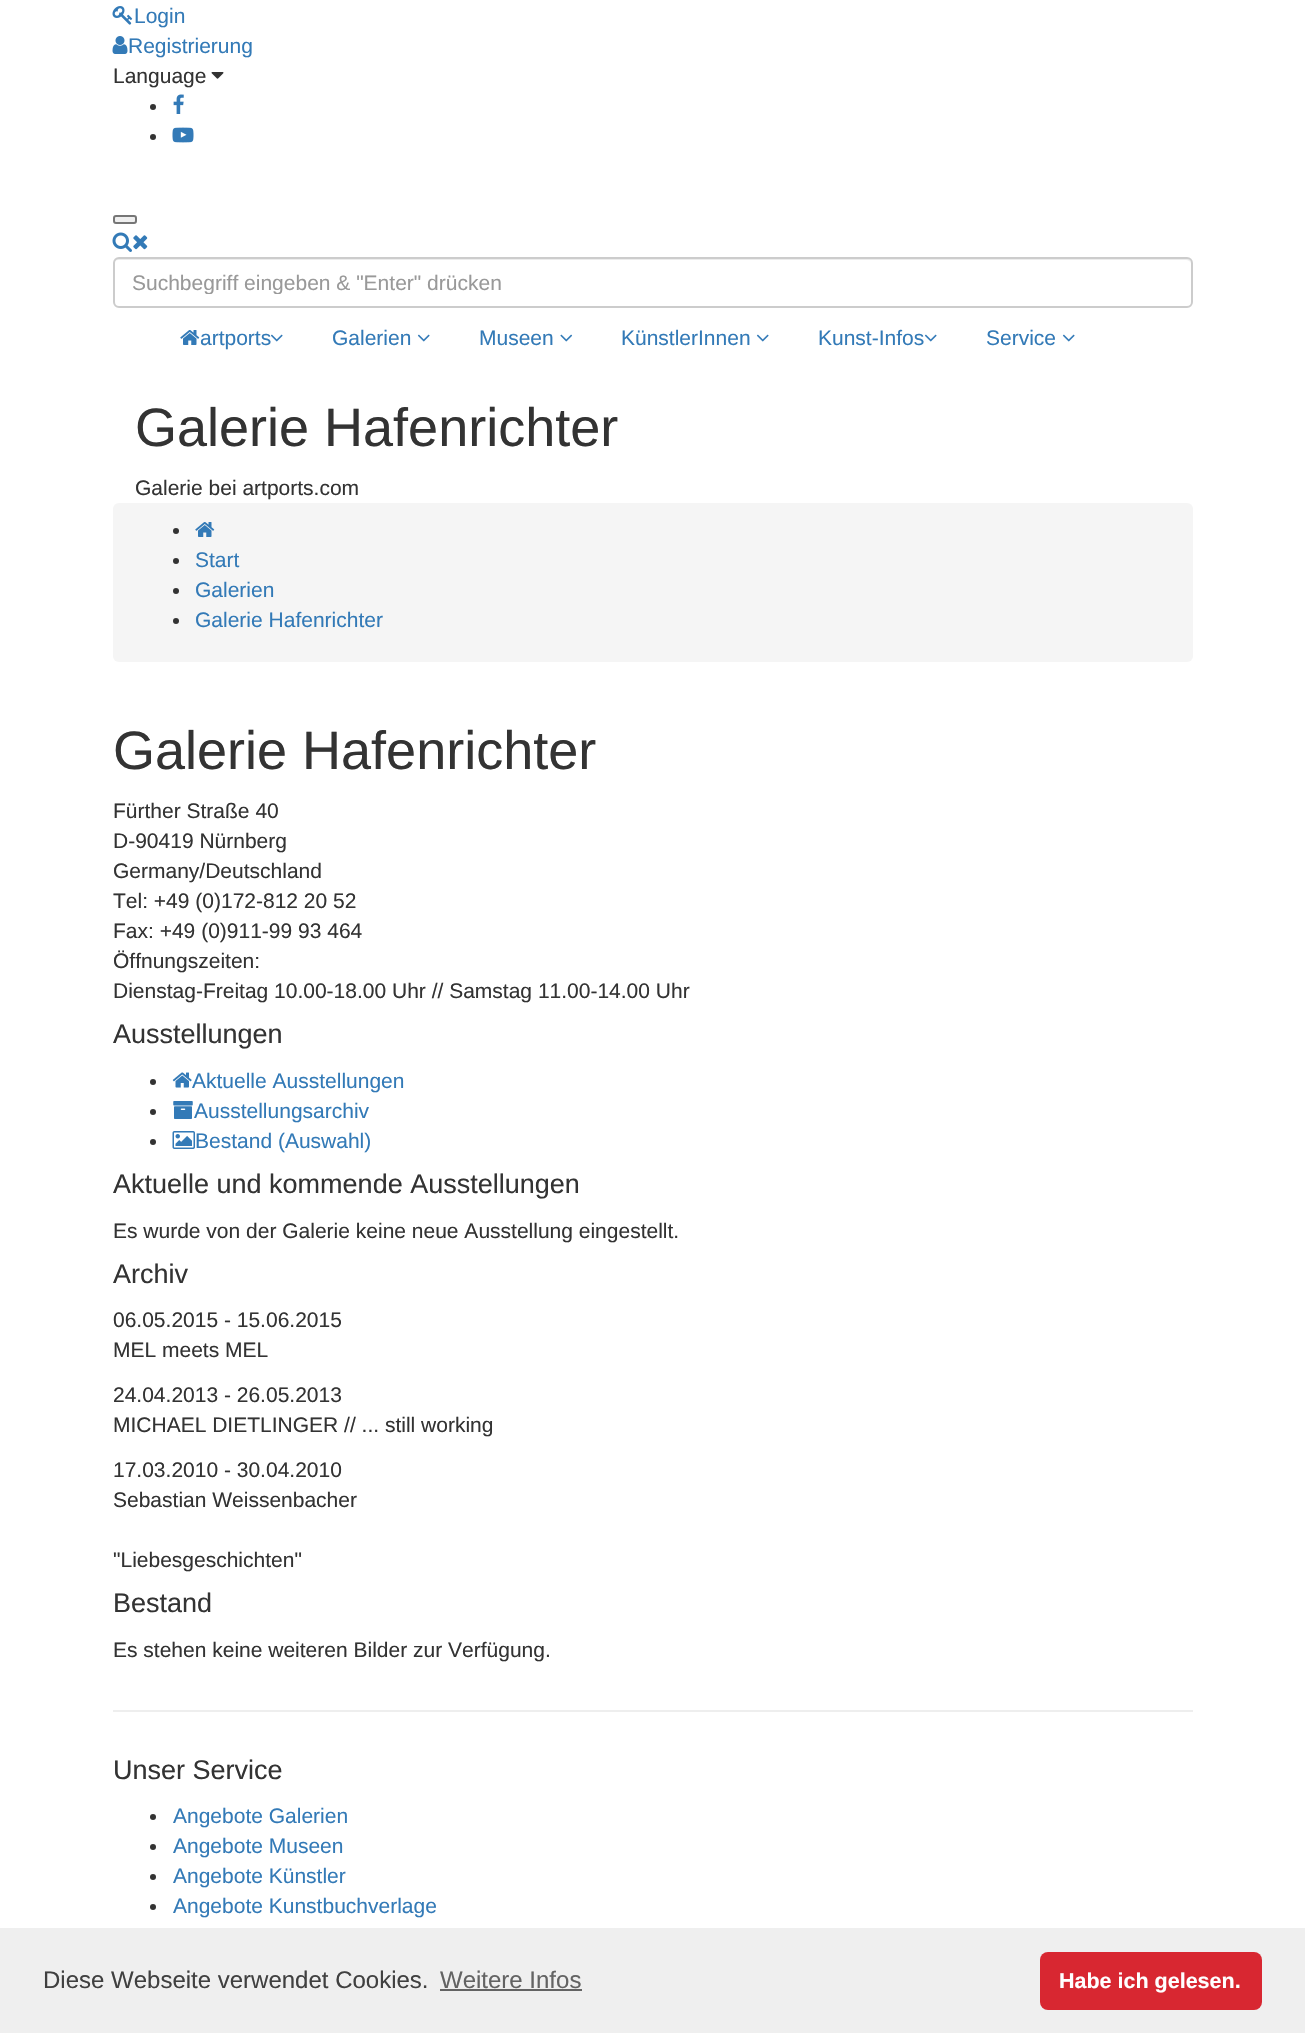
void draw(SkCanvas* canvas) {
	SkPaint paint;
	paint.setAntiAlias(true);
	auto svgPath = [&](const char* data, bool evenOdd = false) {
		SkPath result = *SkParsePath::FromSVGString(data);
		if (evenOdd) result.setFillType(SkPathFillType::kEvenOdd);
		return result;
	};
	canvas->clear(0xffffffff);
	canvas->drawImageRect(SkImages::DeferredFromEncodedData(SkData::MakeFromFileName("img1.png")), SkRect::MakeXYWH(112, 6, 21, 19), SkSamplingOptions());
	SkFont f1(fontMgr->matchFamilyStyle("Liberation Sans", SkFontStyle::Normal()), 21);
	f1.setSubpixel(true);
	paint.setColor(0xff337ab7);
	canvas->drawString("Login", 134, 23, f1, paint);
	canvas->drawImageRect(SkImages::DeferredFromEncodedData(SkData::MakeFromFileName("img2.png")), SkRect::MakeXYWH(112, 36, 16, 18), SkSamplingOptions());
	canvas->drawString("Registrierung", 128, 53, f1, paint);
	paint.setColor(0xff333333);
	canvas->drawString("Language", 113, 83, f1, paint);
	canvas->drawImageRect(SkImages::DeferredFromEncodedData(SkData::MakeFromFileName("img3.png")), SkRect::MakeXYWH(211, 72, 13, 7), SkSamplingOptions());
	canvas->drawCircle(153, 107, 3, paint);
	canvas->drawImageRect(SkImages::DeferredFromEncodedData(SkData::MakeFromFileName("img4.png")), SkRect::MakeXYWH(173, 94, 11, 20), SkSamplingOptions());
	canvas->drawCircle(153, 137, 3, paint);
	canvas->drawImageRect(SkImages::DeferredFromEncodedData(SkData::MakeFromFileName("img5.png")), SkRect::MakeXYWH(172, 127, 22, 16), SkSamplingOptions());
	paint.setColor(0xffefefef);
	canvas->drawRoundRect(SkRect::MakeXYWH(114, 216, 22, 7), 2, 2, paint);
	paint.setStroke(true);
	paint.setStrokeWidth(2);
	paint.setColor(0xff767676);
	canvas->drawRoundRect(SkRect::MakeXYWH(114, 216, 22, 7), 2, 2, paint);
	canvas->drawImageRect(SkImages::DeferredFromEncodedData(SkData::MakeFromFileName("img6.png")), SkRect::MakeXYWH(112, 232, 20, 20), SkSamplingOptions());
	canvas->drawImageRect(SkImages::DeferredFromEncodedData(SkData::MakeFromFileName("img7.png")), SkRect::MakeXYWH(133, 235, 15, 15), SkSamplingOptions());
	paint.setStroke(false);
	paint.setColor(0xffececec);
	canvas->drawPath(svgPath("M118 260H1186C1189 260 1191 262 1191 264C1191 261 1189 258 1186 258H119C116 258 114 261 114 264C114 262 116 260 118 260Z"), paint);
	paint.setStroke(true);
	paint.setColor(0xffcccccc);
	canvas->drawRoundRect(SkRect::MakeXYWH(114, 258, 1078, 49), 5, 5, paint);
	canvas->save();
	canvas->clipRect(SkRect::MakeXYWH(132, 270, 1041, 24));
	paint.setStroke(false);
	paint.setColor(0xff999999);
	canvas->drawString("Suchbegriff eingeben & \"Enter\" drücken", 132, 290, f1, paint);
	canvas->restore();
	canvas->drawImageRect(SkImages::DeferredFromEncodedData(SkData::MakeFromFileName("img8.png")), SkRect::MakeXYWH(180, 330, 20, 15), SkSamplingOptions());
	paint.setColor(0xff337ab7);
	canvas->drawString("artports", 200, 345, f1, paint);
	canvas->drawImageRect(SkImages::DeferredFromEncodedData(SkData::MakeFromFileName("img9.png")), SkRect::MakeXYWH(270, 334, 13, 8), SkSamplingOptions());
	canvas->drawString("Galerien", 332, 345, f1, paint);
	canvas->drawImageRect(SkImages::DeferredFromEncodedData(SkData::MakeFromFileName("img9.png")), SkRect::MakeXYWH(417, 334, 13, 8), SkSamplingOptions());
	canvas->drawString("Museen", 479, 345, f1, paint);
	canvas->drawImageRect(SkImages::DeferredFromEncodedData(SkData::MakeFromFileName("img10.png")), SkRect::MakeXYWH(560, 334, 13, 8), SkSamplingOptions());
	canvas->drawString("KünstlerInnen", 621, 345, f1, paint);
	canvas->drawImageRect(SkImages::DeferredFromEncodedData(SkData::MakeFromFileName("img9.png")), SkRect::MakeXYWH(756, 334, 13, 8), SkSamplingOptions());
	canvas->drawString("Kunst-Infos", 818, 345, f1, paint);
	canvas->drawImageRect(SkImages::DeferredFromEncodedData(SkData::MakeFromFileName("img9.png")), SkRect::MakeXYWH(924, 334, 13, 8), SkSamplingOptions());
	canvas->drawString("Service", 986, 345, f1, paint);
	canvas->drawImageRect(SkImages::DeferredFromEncodedData(SkData::MakeFromFileName("img9.png")), SkRect::MakeXYWH(1062, 334, 13, 8), SkSamplingOptions());
	SkFont f2(fontMgr->matchFamilyStyle("Liberation Sans", SkFontStyle::Normal()), 54);
	f2.setSubpixel(true);
	paint.setColor(0xff333333);
	canvas->drawString("Galerie Hafenrichter", 135, 446, f2, paint);
	canvas->drawString("Galerie bei artports.com", 135, 495, f1, paint);
	paint.setColor(0xfff5f5f5);
	canvas->drawRoundRect(SkRect::MakeXYWH(113, 503, 1080, 159), 6, 6, paint);
	paint.setColor(0xff333333);
	canvas->drawCircle(176, 531, 3, paint);
	canvas->drawImageRect(SkImages::DeferredFromEncodedData(SkData::MakeFromFileName("img11.png")), SkRect::MakeXYWH(195, 522, 20, 15), SkSamplingOptions());
	canvas->drawCircle(176, 561, 3, paint);
	paint.setColor(0xff337ab7);
	canvas->drawString("Start", 195, 567, f1, paint);
	paint.setColor(0xff333333);
	canvas->drawCircle(176, 591, 3, paint);
	paint.setColor(0xff337ab7);
	canvas->drawString("Galerien", 195, 597, f1, paint);
	paint.setColor(0xff333333);
	canvas->drawCircle(176, 621, 3, paint);
	paint.setColor(0xff337ab7);
	canvas->drawString("Galerie Hafenrichter", 195, 627, f1, paint);
	paint.setColor(0xff333333);
	canvas->drawString("Galerie Hafenrichter", 113, 769, f2, paint);
	canvas->drawString("Fürther Straße 40", 113, 818, f1, paint);
	canvas->drawString("D-90419 Nürnberg", 113, 848, f1, paint);
	canvas->drawString("Germany/Deutschland", 113, 878, f1, paint);
	canvas->drawString("Tel: +49 (0)172-812 20 52", 113, 908, f1, paint);
	canvas->drawString("Fax: +49 (0)911-99 93 464", 113, 938, f1, paint);
	canvas->drawString("Öffnungszeiten:", 113, 968, f1, paint);
	canvas->drawString("Dienstag-Freitag 10.00-18.00 Uhr // Samstag 11.00-14.00 Uhr", 113, 998, f1, paint);
	SkFont f3(fontMgr->matchFamilyStyle("Liberation Sans", SkFontStyle::Normal()), 27);
	f3.setSubpixel(true);
	canvas->drawString("Ausstellungen", 113, 1043, f3, paint);
	canvas->drawCircle(153, 1082, 3, paint);
	canvas->drawImageRect(SkImages::DeferredFromEncodedData(SkData::MakeFromFileName("img12.png")), SkRect::MakeXYWH(172, 1072, 20, 16), SkSamplingOptions());
	paint.setColor(0xff337ab7);
	canvas->drawString("Aktuelle Ausstellungen", 192, 1088, f1, paint);
	paint.setColor(0xff333333);
	canvas->drawCircle(153, 1112, 3, paint);
	canvas->drawImageRect(SkImages::DeferredFromEncodedData(SkData::MakeFromFileName("img13.png")), SkRect::MakeXYWH(173, 1101, 20, 18), SkSamplingOptions());
	paint.setColor(0xff337ab7);
	canvas->drawString("Ausstellungsarchiv", 194, 1118, f1, paint);
	paint.setColor(0xff333333);
	canvas->drawCircle(153, 1142, 3, paint);
	canvas->drawImageRect(SkImages::DeferredFromEncodedData(SkData::MakeFromFileName("img14.png")), SkRect::MakeXYWH(172, 1131, 23, 18), SkSamplingOptions());
	paint.setColor(0xff337ab7);
	canvas->drawString("Bestand (Auswahl)", 195, 1148, f1, paint);
	paint.setColor(0xff333333);
	canvas->drawString("Aktuelle und kommende Ausstellungen", 113, 1193, f3, paint);
	canvas->drawString("Es wurde von der Galerie keine neue Ausstellung eingestellt.", 113, 1238, f1, paint);
	canvas->drawString("Archiv", 113, 1283, f3, paint);
	canvas->drawString("06.05.2015 - 15.06.2015", 113, 1327, f1, paint);
	canvas->drawString("MEL meets MEL", 113, 1357, f1, paint);
	canvas->drawString("24.04.2013 - 26.05.2013", 113, 1402, f1, paint);
	canvas->drawString("MICHAEL DIETLINGER // ... still working", 113, 1432, f1, paint);
	canvas->drawString("17.03.2010 - 30.04.2010", 113, 1477, f1, paint);
	canvas->drawString("Sebastian Weissenbacher", 113, 1507, f1, paint);
	canvas->drawString("\"Liebesgeschichten\"", 113, 1567, f1, paint);
	canvas->drawString("Bestand", 113, 1612, f3, paint);
	canvas->drawString("Es stehen keine weiteren Bilder zur Verfügung.", 113, 1657, f1, paint);
	paint.setColor(0xffeeeeee);
	canvas->drawRect(SkRect::MakeXYWH(113, 1710, 1080, 2), paint);
	paint.setColor(0xff333333);
	canvas->drawString("Unser Service", 113, 1779, f3, paint);
	canvas->drawCircle(153, 1817, 3, paint);
	paint.setColor(0xff337ab7);
	canvas->drawString("Angebote Galerien", 173, 1823, f1, paint);
	paint.setColor(0xff333333);
	canvas->drawCircle(153, 1847, 3, paint);
	paint.setColor(0xff337ab7);
	canvas->drawString("Angebote Museen", 173, 1853, f1, paint);
	paint.setColor(0xff333333);
	canvas->drawCircle(153, 1877, 3, paint);
	paint.setColor(0xff337ab7);
	canvas->drawString("Angebote Künstler", 173, 1883, f1, paint);
	paint.setColor(0xff333333);
	canvas->drawCircle(153, 1907, 3, paint);
	paint.setColor(0xff337ab7);
	canvas->drawString("Angebote Kunstbuchverlage", 173, 1913, f1, paint);
	paint.setColor(0xffefefef);
	canvas->drawRect(SkRect::MakeXYWH(0, 1928, 1305, 105), paint);
	SkFont f4(fontMgr->matchFamilyStyle("Liberation Sans", SkFontStyle::Normal()), 24);
	f4.setSubpixel(true);
	paint.setColor(0xff404040);
	canvas->drawString("Diese Webseite verwendet Cookies.", 43, 1988, f4, paint);
	paint.setColor(0xff636363);
	canvas->drawString("Weitere Infos", 440, 1988, f4, paint);
	canvas->drawRect(SkRect::MakeXYWH(440, 1989, 142, 2), paint);
	paint.setColor(0xffd82731);
	canvas->drawRoundRect(SkRect::MakeXYWH(1040, 1952, 222, 58), 8, 8, paint);
	SkFont f5(fontMgr->matchFamilyStyle("Liberation Sans", SkFontStyle::Bold()), 21.5);
	f5.setSubpixel(true);
	paint.setColor(0xffffffff);
	canvas->drawString("Habe ich gelesen.", 1059, 1988, f5, paint);
}
